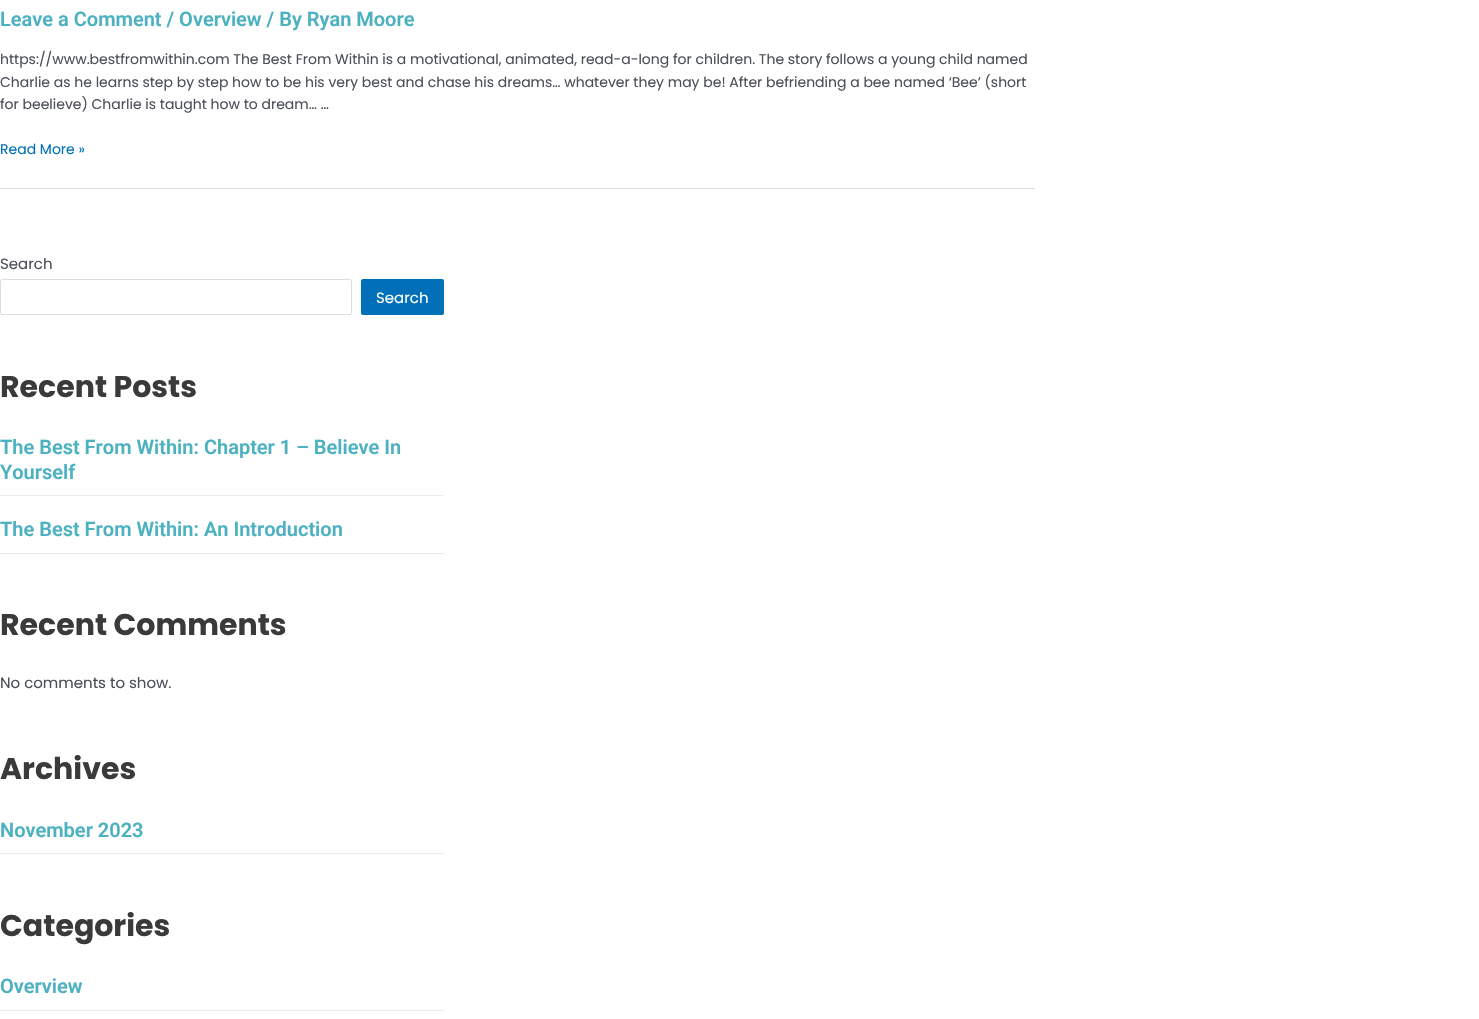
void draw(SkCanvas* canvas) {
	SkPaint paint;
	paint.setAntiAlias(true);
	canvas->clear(0xffffffff);
	paint.setColor(0xffdddddd);
	canvas->drawRect(SkRect::MakeXYWH(0, 188, 1035, 1), paint);
	SkFont f1(fontMgr->matchFamilyStyle("Roboto", SkFontStyle(600, SkFontStyle::kNormal_Width, SkFontStyle::kUpright_Slant)), 20);
	f1.setSubpixel(true);
	paint.setColor(0xff4cb1c0);
	canvas->drawString("Leave a Comment / Overview / By Ryan Moore", 0, 26, f1, paint);
	SkFont f2(fontMgr->matchFamilyStyle("Poppins", SkFontStyle::Normal()), 14);
	f2.setSubpixel(true);
	paint.setColor(0xff4b4f58);
	canvas->drawString("https://www.bestfromwithin.com The Best From Within is a motivational, animated, read-a-long for children. The story follows a young child named", 0, 64, f2, paint);
	canvas->drawString("Charlie as he learns step by step how to be his very best and chase his dreams… whatever they may be! After befriending a bee named ‘Bee’ (short", 0, 87, f2, paint);
	canvas->drawString("for beelieve) Charlie is taught how to dream… …", 0, 109, f2, paint);
	paint.setColor(0xff0170b9);
	canvas->drawString("Read More »", 0, 154, f2, paint);
	SkFont f3(fontMgr->matchFamilyStyle("Poppins", SkFontStyle::Normal()), 15);
	f3.setSubpixel(true);
	paint.setColor(0xff4b4f58);
	canvas->drawString("Search", 0, 269, f3, paint);
	paint.setStroke(true);
	paint.setStrokeWidth(1);
	paint.setColor(0xffdddddd);
	canvas->drawRoundRect(SkRect::MakeXYWH(0.5, 279.5, 351, 35), 1.5, 1.5, paint);
	paint.setStroke(false);
	paint.setColor(0xff0170b9);
	canvas->drawRoundRect(SkRect::MakeXYWH(361, 279, 83, 36), 2, 2, paint);
	paint.setColor(0xffffffff);
	canvas->drawString("Search", 376, 303, f3, paint);
	SkFont f4(fontMgr->matchFamilyStyle("Poppins", SkFontStyle::Bold()), 30);
	f4.setSubpixel(true);
	paint.setColor(0xff3a3a3a);
	canvas->drawString("Recent Posts", 0, 397, f4, paint);
	paint.setColor(0xffebebeb);
	canvas->drawRect(SkRect::MakeXYWH(0, 495, 444, 1), paint);
	paint.setColor(0xff4cb1c0);
	canvas->drawString("The Best From Within: Chapter 1 – Believe In", 0, 454, f1, paint);
	canvas->drawString("Yourself", 0, 479, f1, paint);
	paint.setColor(0xffebebeb);
	canvas->drawRect(SkRect::MakeXYWH(0, 553, 444, 1), paint);
	paint.setColor(0xff4cb1c0);
	canvas->drawString("The Best From Within: An Introduction", 0, 536, f1, paint);
	paint.setColor(0xff3a3a3a);
	canvas->drawString("Recent Comments", 0, 635, f4, paint);
	paint.setColor(0xff4b4f58);
	canvas->drawString("No comments to show.", 0, 688, f3, paint);
	paint.setColor(0xff3a3a3a);
	canvas->drawString("Archives", 0, 779, f4, paint);
	paint.setColor(0xffebebeb);
	canvas->drawRect(SkRect::MakeXYWH(0, 853, 444, 1), paint);
	paint.setColor(0xff4cb1c0);
	canvas->drawString("November 2023", 0, 837, f1, paint);
	paint.setColor(0xff3a3a3a);
	canvas->drawString("Categories", 0, 936, f4, paint);
	paint.setColor(0xffebebeb);
	canvas->drawRect(SkRect::MakeXYWH(0, 1010, 444, 1), paint);
	paint.setColor(0xff4cb1c0);
	canvas->drawString("Overview", 0, 993, f1, paint);
}
